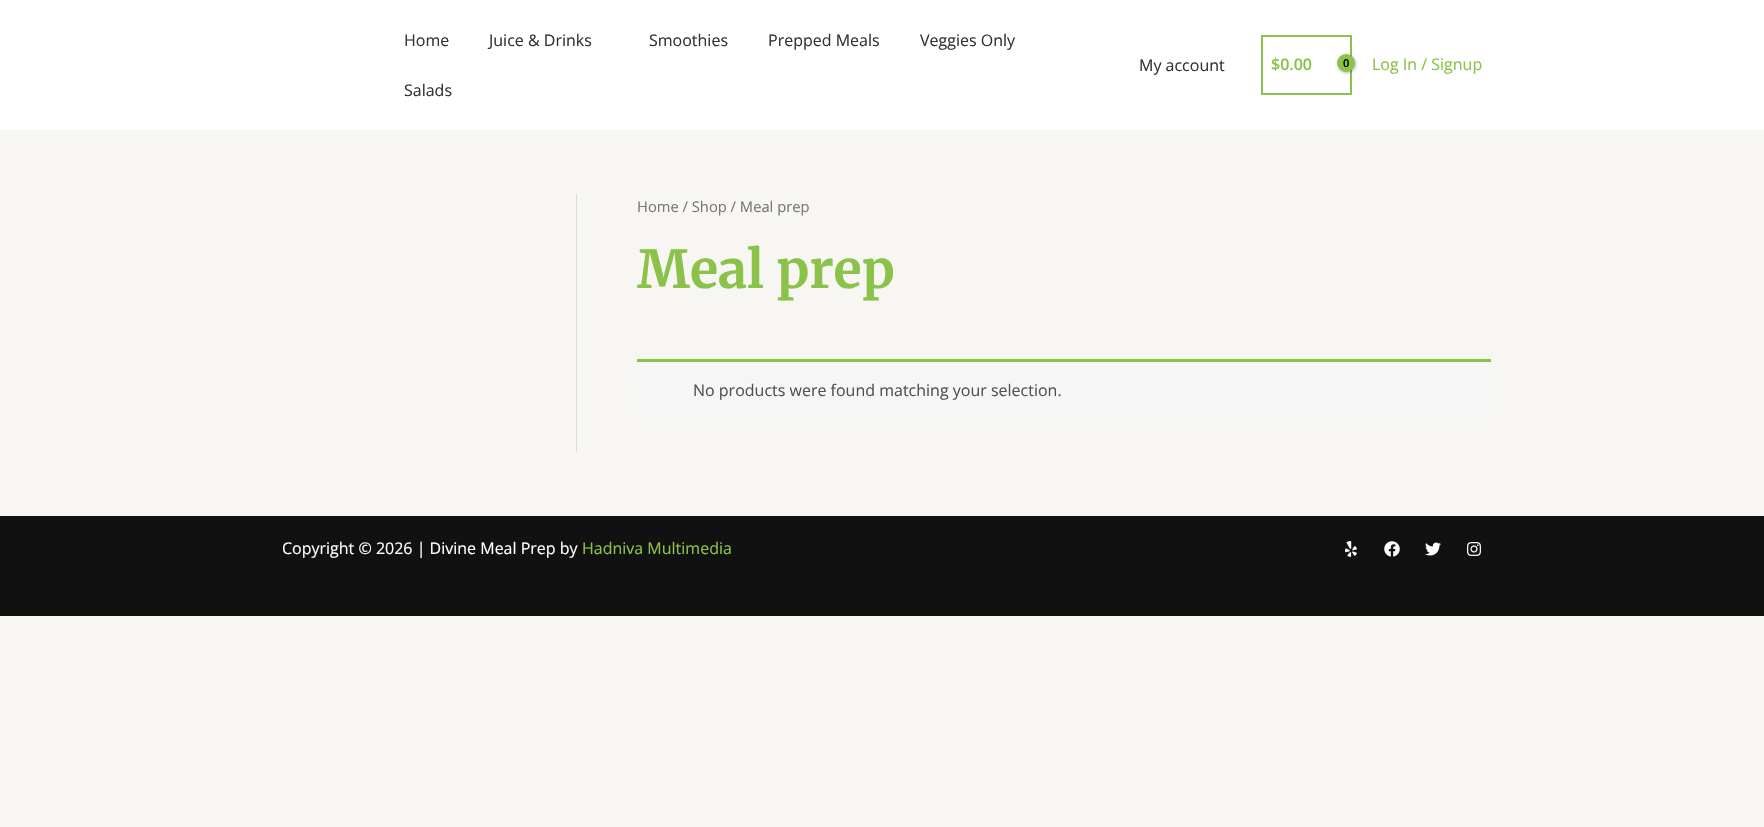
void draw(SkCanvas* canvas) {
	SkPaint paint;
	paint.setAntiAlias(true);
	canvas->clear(0xfff8f6f3);
	paint.setColor(0xffffffff);
	canvas->drawRect(SkRect::MakeXYWH(0, 0, 1764, 130), paint);
	SkFont f1(fontMgr->matchFamilyStyle("Open Sans", SkFontStyle::Normal()), 16);
	f1.setSubpixel(true);
	paint.setColor(0xff333333);
	canvas->drawString("Home", 404, 46, f1, paint);
	canvas->drawString("Juice & Drinks", 489, 46, f1, paint);
	canvas->drawString("Smoothies", 649, 46, f1, paint);
	canvas->drawString("Prepped Meals", 768, 46, f1, paint);
	canvas->drawString("Veggies Only", 920, 46, f1, paint);
	canvas->drawString("Salads", 404, 96, f1, paint);
	canvas->drawString("My account", 1139, 71, f1, paint);
	paint.setStroke(true);
	paint.setStrokeWidth(2);
	paint.setColor(0xff8bc34a);
	canvas->drawRect(SkRect::MakeXYWH(1262, 36, 89, 58), paint);
	SkFont f2(fontMgr->matchFamilyStyle("Open Sans", SkFontStyle(600, SkFontStyle::kNormal_Width, SkFontStyle::kUpright_Slant)), 16);
	f2.setSubpixel(true);
	paint.setStroke(false);
	canvas->drawString("$0.00", 1271, 70, f2, paint);
	paint.setColor(0x4d000000);
	paint.setMaskFilter(SkMaskFilter::MakeBlur(kNormal_SkBlurStyle, 1.5));
	canvas->drawRoundRect(SkRect::MakeXYWH(1338, 55, 18, 18), 9, 9, paint);
	paint.setMaskFilter(nullptr);
	paint.setColor(0xff8bc34a);
	canvas->drawCircle(1346, 63, 9, paint);
	SkFont f3(fontMgr->matchFamilyStyle("Open Sans", SkFontStyle(600, SkFontStyle::kNormal_Width, SkFontStyle::kUpright_Slant)), 11);
	f3.setSubpixel(true);
	paint.setColor(0xff000000);
	canvas->drawString("0", 1343, 67, f3, paint);
	paint.setColor(0xff8bc34a);
	canvas->drawString("Log In / Signup", 1372, 70, f1, paint);
	paint.setColor(0xffdddddd);
	canvas->drawRect(SkRect::MakeXYWH(576, 194, 1, 258), paint);
	SkFont f4(fontMgr->matchFamilyStyle("Open Sans", SkFontStyle::Normal()), 14.75);
	f4.setSubpixel(true);
	paint.setColor(0xff777777);
	canvas->drawString("Home / Shop / Meal prep", 637, 212, f4, paint);
	SkFont f5(fontMgr->matchFamilyStyle("Merriweather", SkFontStyle(300, SkFontStyle::kNormal_Width, SkFontStyle::kUpright_Slant)), 52);
	f5.setSubpixel(true);
	paint.setColor(0xff8bc34a);
	canvas->drawString("Meal prep", 637, 288, f5, paint);
	paint.setColor(0xfff7f6f7);
	canvas->drawRect(SkRect::MakeXYWH(637, 362, 854, 58), paint);
	paint.setColor(0xff8bc34a);
	canvas->drawRect(SkRect::MakeXYWH(637, 359, 854, 3), paint);
	paint.setColor(0xff515151);
	canvas->drawString("No products were found matching your selection.", 693, 396, f1, paint);
	paint.setColor(0xff111111);
	canvas->drawRect(SkRect::MakeXYWH(0, 516, 1764, 100), paint);
	paint.setColor(0xffffffff);
	canvas->drawString("Copyright © 2026 | Divine Meal Prep by", 282, 554, f1, paint);
	paint.setColor(0xff8bc34a);
	canvas->drawString("Hadniva Multimedia", 582, 554, f1, paint);
	canvas->drawImageRect(SkImages::DeferredFromEncodedData(SkData::MakeFromFileName("img1.png")), SkRect::MakeXYWH(1345, 541, 12, 16), SkSamplingOptions());
	canvas->drawImageRect(SkImages::DeferredFromEncodedData(SkData::MakeFromFileName("img2.png")), SkRect::MakeXYWH(1384, 541, 16, 16), SkSamplingOptions());
	canvas->drawImageRect(SkImages::DeferredFromEncodedData(SkData::MakeFromFileName("img3.png")), SkRect::MakeXYWH(1425, 542, 16, 14), SkSamplingOptions());
	canvas->drawImageRect(SkImages::DeferredFromEncodedData(SkData::MakeFromFileName("img4.png")), SkRect::MakeXYWH(1467, 542, 14, 14), SkSamplingOptions());
}
